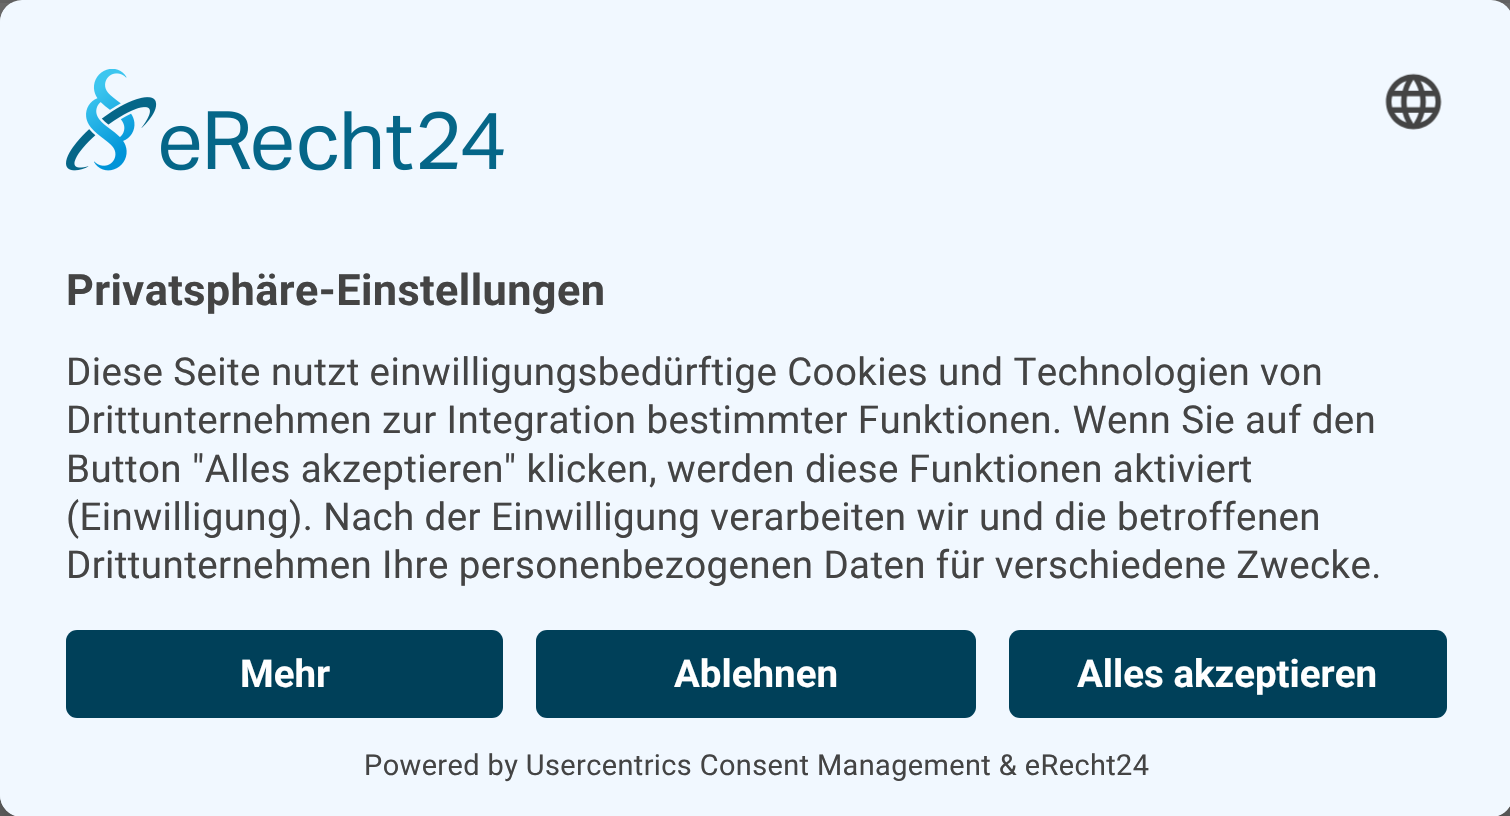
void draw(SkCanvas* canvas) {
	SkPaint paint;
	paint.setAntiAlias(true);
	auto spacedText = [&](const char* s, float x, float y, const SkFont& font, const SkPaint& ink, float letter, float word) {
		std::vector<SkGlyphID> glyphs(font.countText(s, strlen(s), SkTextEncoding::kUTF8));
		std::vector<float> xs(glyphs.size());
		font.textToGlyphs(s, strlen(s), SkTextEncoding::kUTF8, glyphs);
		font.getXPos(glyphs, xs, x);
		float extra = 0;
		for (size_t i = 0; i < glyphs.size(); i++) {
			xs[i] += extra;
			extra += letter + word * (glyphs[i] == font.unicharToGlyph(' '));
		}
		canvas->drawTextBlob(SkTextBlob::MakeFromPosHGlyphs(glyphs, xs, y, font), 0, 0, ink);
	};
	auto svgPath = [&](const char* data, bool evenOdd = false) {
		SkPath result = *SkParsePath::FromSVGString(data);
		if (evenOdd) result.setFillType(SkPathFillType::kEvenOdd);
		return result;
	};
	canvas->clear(0xff707070);
	paint.setColor(0xff676767);
	canvas->drawRect(SkRect::MakeXYWH(0, 0, 1510, 3), paint);
	paint.setColor(0x4d000000);
	paint.setMaskFilter(SkMaskFilter::MakeBlur(kNormal_SkBlurStyle, 38.5));
	canvas->drawRoundRect(SkRect::MakeXYWH(0, 55, 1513, 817), 22, 22, paint);
	paint.setMaskFilter(nullptr);
	paint.setColor(0x38000000);
	paint.setMaskFilter(SkMaskFilter::MakeBlur(kNormal_SkBlurStyle, 36));
	canvas->drawRoundRect(SkRect::MakeXYWH(0, 14, 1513, 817), 22, 22, paint);
	paint.setMaskFilter(nullptr);
	paint.setColor(0xfff1f8ff);
	canvas->drawRoundRect(SkRect::MakeXYWH(0, 0, 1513, 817), 22, 22, paint);
	canvas->save();
	canvas->clipPath(svgPath("M22 0H1491C1503 0 1513 10 1513 22V795C1513 807 1503 817 1491 817H22C10 817 0 807 0 795V22C0 10 10 0 22 0Z"), true);
	canvas->clipPath(svgPath("M22 0H1491C1503 0 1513 10 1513 22V608H0V22C0 10 10 0 22 0Z"), true);
	canvas->drawRect(SkRect::MakeXYWH(0, 3, 1510, 605), paint);
	canvas->restore();
	canvas->drawImageRect(SkImages::DeferredFromEncodedData(SkData::MakeFromFileName("img1.png")), SkRect::MakeXYWH(66, 69, 438, 102), SkSamplingOptions());
	canvas->drawImageRect(SkImages::DeferredFromEncodedData(SkData::MakeFromFileName("img2.png")), SkRect::MakeXYWH(1385, 73, 57, 57), SkSamplingOptions());
	SkFont f1(fontMgr->matchFamilyStyle("Roboto", SkFontStyle::Bold()), 43.25);
	f1.setSubpixel(true);
	paint.setColor(0xff444444);
	spacedText("Privatsphäre-Einstellungen", 66, 305, f1, paint, 0.4, 0);
	SkFont f2(fontMgr->matchFamilyStyle("Roboto", SkFontStyle::Normal()), 38.5);
	f2.setSubpixel(true);
	spacedText("Diese Seite nutzt einwilligungsbedürftige Cookies und Technologien von", 66, 385, f2, paint, 0.4, 0);
	spacedText("Drittunternehmen zur Integration bestimmter Funktionen. Wenn Sie auf den", 66, 433, f2, paint, 0.4, 0);
	spacedText("Button \"Alles akzeptieren\" klicken, werden diese Funktionen aktiviert", 66, 482, f2, paint, 0.4, 0);
	spacedText("(Einwilligung). Nach der Einwilligung verarbeiten wir und die betroffenen", 66, 530, f2, paint, 0.4, 0);
	spacedText("Drittunternehmen Ihre personenbezogenen Daten für verschiedene Zwecke.", 66, 578, f2, paint, 0.4, 0);
	paint.setColor(0xfff1f8ff);
	canvas->drawPath(svgPath("M0 608H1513V795C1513 807 1503 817 1491 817H22C10 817 0 807 0 795Z"), paint);
	paint.setColor(0xff004059);
	canvas->drawRoundRect(SkRect::MakeXYWH(66, 630, 437, 88), 11, 11, paint);
	SkFont f3(fontMgr->matchFamilyStyle("Roboto", SkFontStyle::Bold()), 38.5);
	f3.setSubpixel(true);
	paint.setColor(0xffffffff);
	canvas->drawString("Mehr", 240, 687, f3, paint);
	paint.setColor(0xff004059);
	canvas->drawRoundRect(SkRect::MakeXYWH(536, 630, 440, 88), 11, 11, paint);
	paint.setColor(0xffffffff);
	canvas->drawString("Ablehnen", 674, 687, f3, paint);
	paint.setColor(0xff004059);
	canvas->drawRoundRect(SkRect::MakeXYWH(1009, 630, 438, 88), 11, 11, paint);
	paint.setColor(0xffffffff);
	canvas->drawString("Alles akzeptieren", 1077, 687, f3, paint);
	SkFont f4(fontMgr->matchFamilyStyle("Roboto", SkFontStyle::Normal()), 28.9);
	f4.setSubpixel(true);
	paint.setColor(0xff444444);
	spacedText("Powered by Usercentrics Consent Management & eRecht24", 364, 775, f4, paint, 0.4, 0);
}
